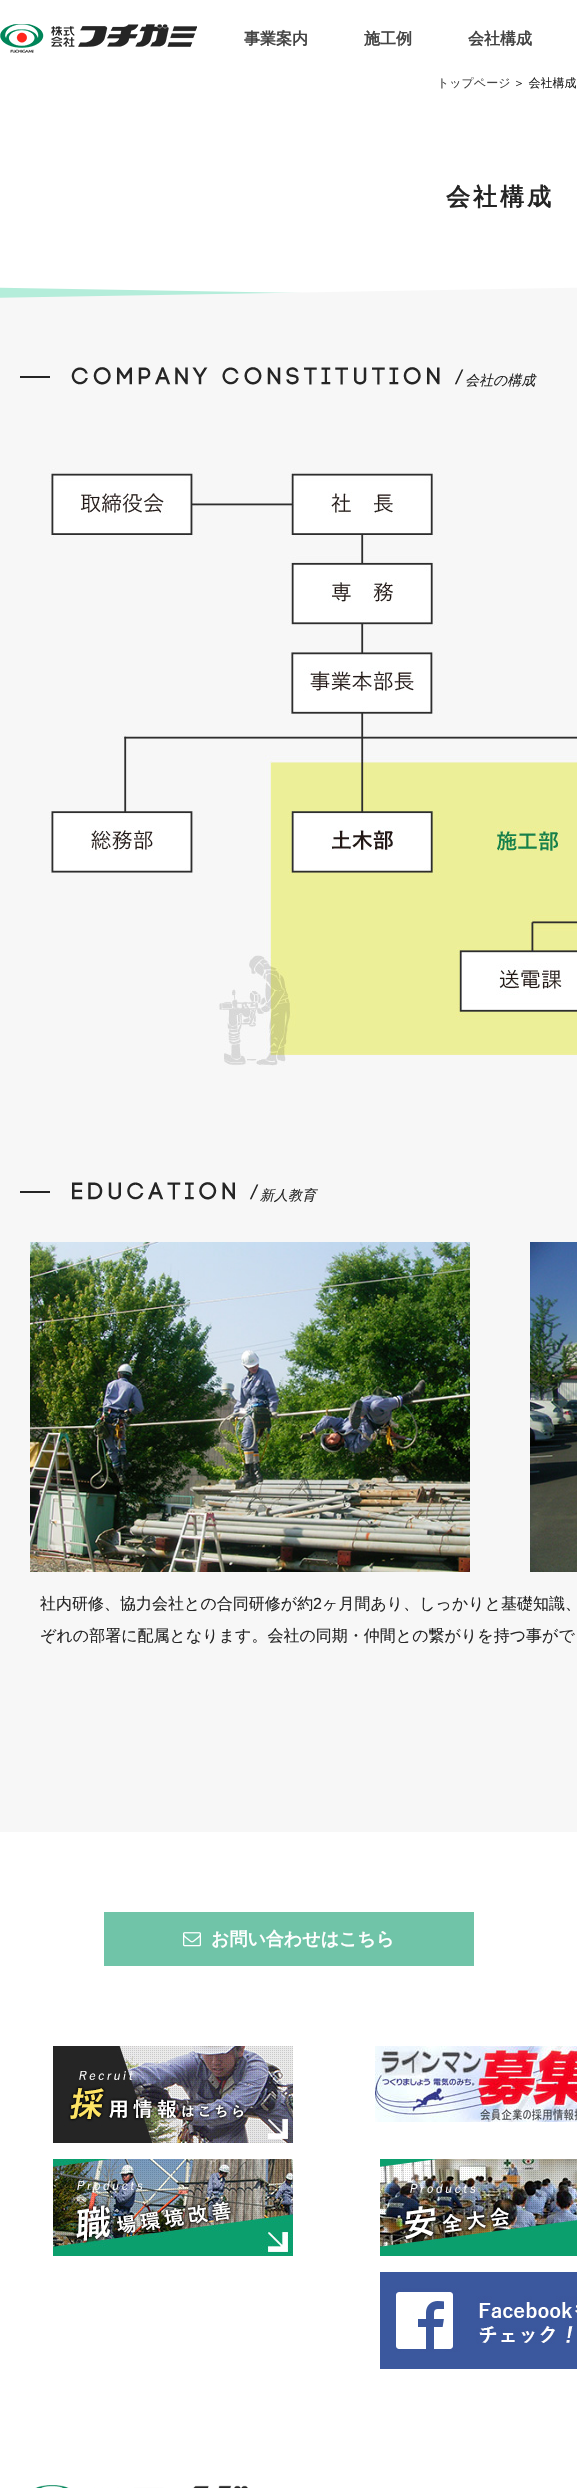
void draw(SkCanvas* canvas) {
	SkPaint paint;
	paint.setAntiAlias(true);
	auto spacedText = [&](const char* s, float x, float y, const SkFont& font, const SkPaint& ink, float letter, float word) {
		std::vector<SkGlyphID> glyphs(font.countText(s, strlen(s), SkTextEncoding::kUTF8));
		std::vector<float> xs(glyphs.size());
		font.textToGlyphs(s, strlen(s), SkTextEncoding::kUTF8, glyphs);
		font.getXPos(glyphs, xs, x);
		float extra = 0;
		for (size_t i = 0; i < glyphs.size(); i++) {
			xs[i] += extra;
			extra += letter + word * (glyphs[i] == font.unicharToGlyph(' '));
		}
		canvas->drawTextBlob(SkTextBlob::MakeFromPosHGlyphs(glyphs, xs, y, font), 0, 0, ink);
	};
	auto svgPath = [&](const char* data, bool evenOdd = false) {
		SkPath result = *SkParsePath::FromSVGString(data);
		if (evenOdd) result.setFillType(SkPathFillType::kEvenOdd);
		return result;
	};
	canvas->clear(0xffffffff);
	canvas->drawImageRect(SkImages::DeferredFromEncodedData(SkData::MakeFromFileName("img1.png")), SkRect::MakeXYWH(0, 24, 197, 29), SkSamplingOptions());
	SkFont f1(fontMgr->matchFamilyStyle("WenQuanYi Zen Hei", SkFontStyle::Bold()), 16);
	f1.setSubpixel(true);
	paint.setColor(0xff444444);
	canvas->drawString("事業案内", 244, 44, f1, paint);
	canvas->drawString("施工例", 364, 44, f1, paint);
	canvas->drawString("会社構成", 468, 44, f1, paint);
	SkFont f2(fontMgr->matchFamilyStyle("WenQuanYi Zen Hei", SkFontStyle(500, SkFontStyle::kNormal_Width, SkFontStyle::kUpright_Slant)), 12);
	f2.setSubpixel(true);
	canvas->drawString("トップページ", 437, 87, f2, paint);
	paint.setColor(0xff252525);
	canvas->drawString("＞ 会社構成", 513, 87, f2, paint);
	SkFont f3(fontMgr->matchFamilyStyle("WenQuanYi Zen Hei", SkFontStyle::Bold()), 24);
	f3.setSubpixel(true);
	spacedText("会社構成", 446, 205, f3, paint, 3, 0);
	canvas->save();
	canvas->clipRect(SkRect::MakeXYWH(0, 287, 577, 1545));
	paint.setColor(0xffb4edda);
	canvas->drawPath(svgPath("M-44 287L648 299L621 1844L-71 1831Z"), paint);
	paint.setColor(0xfff7f7f7);
	canvas->drawPath(svgPath("M-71 299L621 287L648 1831L-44 1844Z"), paint);
	canvas->restore();
	canvas->drawImageRect(SkImages::DeferredFromEncodedData(SkData::MakeFromFileName("img2.png")), SkRect::MakeXYWH(20, 367, 420, 18), SkSamplingOptions());
	SkFont f4(fontMgr->matchFamilyStyle("Liberation Sans", SkFontStyle::Italic()), 20);
	f4.setSubpixel(true);
	paint.setColor(0xff252525);
	canvas->drawString("/", 456, 384, f4, paint);
	SkFont f5(fontMgr->matchFamilyStyle("WenQuanYi Zen Hei", SkFontStyle(500, SkFontStyle::kNormal_Width, SkFontStyle::kItalic_Slant)), 14);
	f5.setSubpixel(true);
	canvas->drawString("会社の構成", 465, 385, f5, paint);
	canvas->drawImageRect(SkImages::DeferredFromEncodedData(SkData::MakeFromFileName("img3.png")), SkRect::MakeXYWH(49, 468, 528, 598), SkSamplingOptions());
	canvas->drawImageRect(SkImages::DeferredFromEncodedData(SkData::MakeFromFileName("img4.png")), SkRect::MakeXYWH(20, 1182, 215, 18), SkSamplingOptions());
	canvas->drawString("/", 251, 1199, f4, paint);
	canvas->drawString("新人教育", 260, 1200, f5, paint);
	canvas->drawImageRect(SkImages::DeferredFromEncodedData(SkData::MakeFromFileName("img5.png")), SkRect::MakeXYWH(30, 1242, 440, 330), SkSamplingOptions());
	canvas->drawImageRect(SkImages::DeferredFromEncodedData(SkData::MakeFromFileName("img6.png")), SkRect::MakeXYWH(530, 1242, 47, 330), SkSamplingOptions());
	SkFont f6(fontMgr->matchFamilyStyle("WenQuanYi Zen Hei", SkFontStyle(500, SkFontStyle::kNormal_Width, SkFontStyle::kUpright_Slant)), 16);
	f6.setSubpixel(true);
	canvas->drawString("社内研修、協力会社との合同研修が約", 40, 1609, f6, paint);
	SkFont f7(fontMgr->matchFamilyStyle("Liberation Sans", SkFontStyle::Normal()), 16);
	f7.setSubpixel(true);
	canvas->drawString("2", 313, 1609, f7, paint);
	canvas->drawString("ヶ月間あり、しっかりと基礎知識、", 322, 1609, f6, paint);
	canvas->drawString("ぞれの部署に配属となります。会社の同期・仲間との繋がりを持つ事がで", 40, 1641, f6, paint);
	paint.setColor(0xff70c4a8);
	canvas->drawRect(SkRect::MakeXYWH(104, 1912, 370, 54), paint);
	canvas->drawImageRect(SkImages::DeferredFromEncodedData(SkData::MakeFromFileName("img7.png")), SkRect::MakeXYWH(183, 1932, 18, 15), SkSamplingOptions());
	SkFont f8(fontMgr->matchFamilyStyle("WenQuanYi Zen Hei", SkFontStyle::Bold()), 18);
	f8.setSubpixel(true);
	paint.setColor(0xffffffff);
	canvas->drawString("お問い合わせはこちら", 211, 1945, f8, paint);
	canvas->drawImageRect(SkImages::DeferredFromEncodedData(SkData::MakeFromFileName("img8.png")), SkRect::MakeXYWH(53, 2046, 240, 97), SkSamplingOptions());
	canvas->drawImageRect(SkImages::DeferredFromEncodedData(SkData::MakeFromFileName("img9.png")), SkRect::MakeXYWH(375, 2046, 202, 76), SkSamplingOptions());
	canvas->drawImageRect(SkImages::DeferredFromEncodedData(SkData::MakeFromFileName("img10.png")), SkRect::MakeXYWH(53, 2159, 240, 97), SkSamplingOptions());
	canvas->drawImageRect(SkImages::DeferredFromEncodedData(SkData::MakeFromFileName("img11.png")), SkRect::MakeXYWH(380, 2159, 197, 97), SkSamplingOptions());
	canvas->drawImageRect(SkImages::DeferredFromEncodedData(SkData::MakeFromFileName("img12.png")), SkRect::MakeXYWH(380, 2272, 197, 97), SkSamplingOptions());
	canvas->drawImageRect(SkImages::DeferredFromEncodedData(SkData::MakeFromFileName("img13.png")), SkRect::MakeXYWH(35, 2485, 213, 3), SkSamplingOptions());
}
